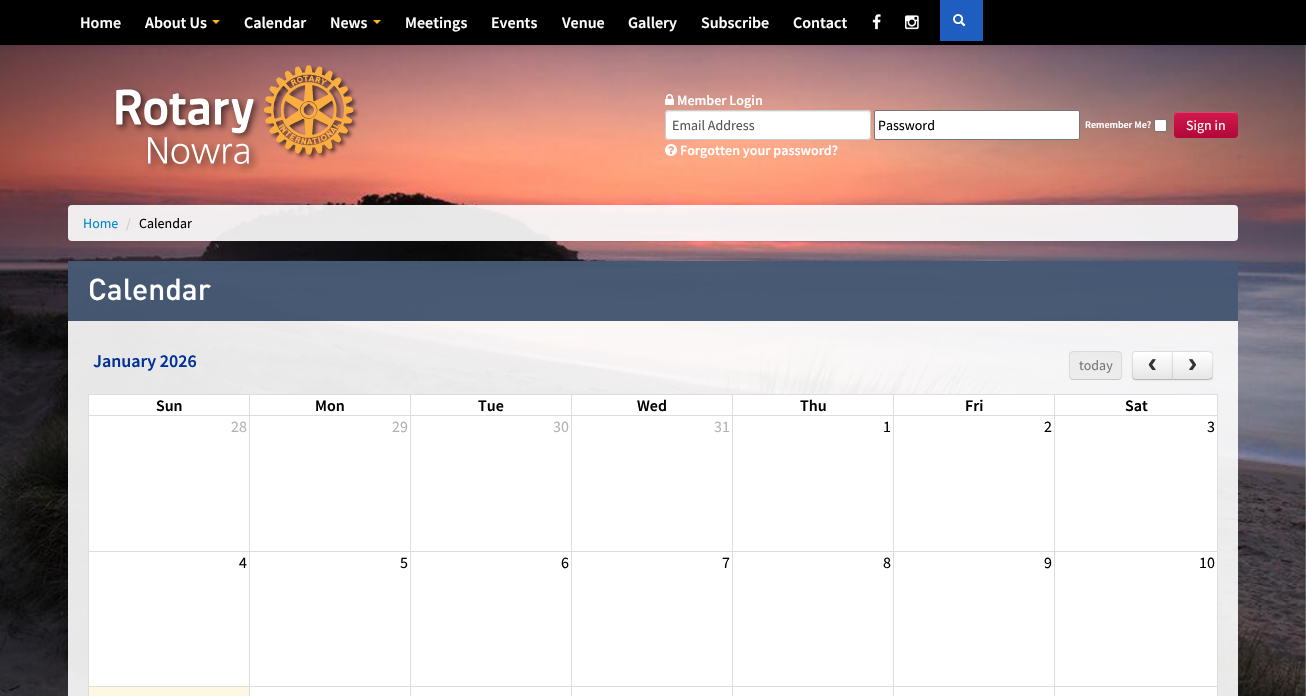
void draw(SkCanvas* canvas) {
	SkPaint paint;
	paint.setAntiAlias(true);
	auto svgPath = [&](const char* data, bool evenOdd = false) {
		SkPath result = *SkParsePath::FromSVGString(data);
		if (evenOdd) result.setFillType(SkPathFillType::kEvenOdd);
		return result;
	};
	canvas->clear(0xffffffff);
	canvas->drawImageRect(SkImages::DeferredFromEncodedData(SkData::MakeFromFileName("img4.png")), SkRect::MakeXYWH(0, 45, 1306, 651), SkSamplingOptions());
	paint.setColor(0x1a000000);
	paint.setMaskFilter(SkMaskFilter::MakeBlur(kNormal_SkBlurStyle, 5));
	canvas->drawRect(SkRect::MakeXYWH(0, 1, 1306, 45), paint);
	paint.setMaskFilter(nullptr);
	paint.setColor(0xff000000);
	canvas->drawRect(SkRect::MakeXYWH(0, 0, 1306, 45), paint);
	SkFont f1(fontMgr->matchFamilyStyle("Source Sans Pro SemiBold", SkFontStyle(600, SkFontStyle::kNormal_Width, SkFontStyle::kUpright_Slant)), 16);
	f1.setSubpixel(true);
	paint.setColor(0xffffffff);
	canvas->drawString("Home", 80, 28, f1, paint);
	canvas->drawString("About Us", 145, 28, f1, paint);
	paint.setColor(0xfffdbc11);
	canvas->drawPath(svgPath("M212 20H220L216 24Z"), paint);
	paint.setColor(0xffffffff);
	canvas->drawString("Calendar", 244, 28, f1, paint);
	canvas->drawString("News", 330, 28, f1, paint);
	paint.setColor(0xfffdbc11);
	canvas->drawPath(svgPath("M373 20H381L377 24Z"), paint);
	paint.setColor(0xffffffff);
	canvas->drawString("Meetings", 405, 28, f1, paint);
	canvas->drawString("Events", 491, 28, f1, paint);
	canvas->drawString("Venue", 562, 28, f1, paint);
	canvas->drawString("Gallery", 628, 28, f1, paint);
	canvas->drawString("Subscribe", 701, 28, f1, paint);
	canvas->drawString("Contact", 793, 28, f1, paint);
	canvas->drawImageRect(SkImages::DeferredFromEncodedData(SkData::MakeFromFileName("img1.png")), SkRect::MakeXYWH(872, 14, 9, 16), SkSamplingOptions());
	canvas->drawImageRect(SkImages::DeferredFromEncodedData(SkData::MakeFromFileName("img2.png")), SkRect::MakeXYWH(905, 15, 14, 15), SkSamplingOptions());
	paint.setColor(0xff1d5ec0);
	canvas->drawRect(SkRect::MakeXYWH(940, 0, 43, 41), paint);
	canvas->drawImageRect(SkImages::DeferredFromEncodedData(SkData::MakeFromFileName("img3.png")), SkRect::MakeXYWH(953, 14, 13, 13), SkSamplingOptions());
	canvas->drawImageRect(SkImages::DeferredFromEncodedData(SkData::MakeFromFileName("img5.png")), SkRect::MakeXYWH(114, 65, 245, 109), SkSamplingOptions());
	canvas->drawImageRect(SkImages::DeferredFromEncodedData(SkData::MakeFromFileName("img6.png")), SkRect::MakeXYWH(665, 94, 9, 11), SkSamplingOptions());
	SkFont f2(fontMgr->matchFamilyStyle("Source Sans Pro SemiBold", SkFontStyle(600, SkFontStyle::kNormal_Width, SkFontStyle::kUpright_Slant)), 14);
	f2.setSubpixel(true);
	paint.setColor(0xffffffff);
	canvas->drawString("Member Login", 677, 105, f2, paint);
	canvas->drawRoundRect(SkRect::MakeXYWH(665, 110, 206, 30), 4, 4, paint);
	paint.setColor(0xffececec);
	canvas->drawPath(svgPath("M669 112H867C869 112 870 113 870 115C870 113 869 111 867 111H669C667 111 666 113 666 115C666 113 667 112 669 112Z"), paint);
	paint.setStroke(true);
	paint.setStrokeWidth(1);
	paint.setColor(0xffcccccc);
	canvas->drawRoundRect(SkRect::MakeXYWH(665.5, 110.5, 205, 29), 3.5, 3.5, paint);
	SkFont f3(fontMgr->matchFamilyStyle("Source Sans Pro", SkFontStyle::Normal()), 14);
	f3.setSubpixel(true);
	paint.setStroke(false);
	paint.setColor(0xff555555);
	canvas->drawString("Email Address", 672, 130, f3, paint);
	paint.setColor(0xffffffff);
	canvas->drawRoundRect(SkRect::MakeXYWH(874.5, 110.5, 205, 29), 1.5, 1.5, paint);
	paint.setStroke(true);
	paint.setColor(0xff767676);
	canvas->drawRoundRect(SkRect::MakeXYWH(874.5, 110.5, 205, 29), 1.5, 1.5, paint);
	paint.setStroke(false);
	paint.setColor(0xff000000);
	canvas->drawString("Password", 878, 130, f3, paint);
	SkFont f4(fontMgr->matchFamilyStyle("Source Sans Pro SemiBold", SkFontStyle(600, SkFontStyle::kNormal_Width, SkFontStyle::kUpright_Slant)), 10);
	f4.setSubpixel(true);
	paint.setColor(0xffffffff);
	canvas->drawString("Remember Me?", 1085, 128, f4, paint);
	canvas->drawRoundRect(SkRect::MakeXYWH(1154.5, 119.5, 12, 12), 1.5, 1.5, paint);
	paint.setStroke(true);
	paint.setColor(0xff767676);
	canvas->drawRoundRect(SkRect::MakeXYWH(1154.5, 119.5, 12, 12), 1.5, 1.5, paint);
	paint.setStroke(false);
	{
		const SkColor colors[] = {0xffd3194d, 0xffb10737};
		const float stops[] = {0, 1};
		const SkPoint ends[] = {{1206, 112}, {1206, 138}};
		paint.setShader(SkGradientShader::MakeLinear(ends, colors, stops, 2, SkTileMode::kClamp));
		paint.setAlpha(255);
	}
	canvas->drawRoundRect(SkRect::MakeXYWH(1174, 112, 64, 26), 4, 4, paint);
	paint.setShader(nullptr);
	paint.setColor(0x33ffffff);
	canvas->drawPath(svgPath("M1178 113H1234C1236 113 1238 115 1238 117C1238 110 1230 112 1225 112H1187C1182 112 1174 110 1174 117C1174 115 1176 113 1178 113Z"), paint);
	paint.setColor(0xffffffff);
	canvas->drawString("Sign in", 1186, 130, f3, paint);
	canvas->drawImageRect(SkImages::DeferredFromEncodedData(SkData::MakeFromFileName("img7.png")), SkRect::MakeXYWH(665, 144, 12, 12), SkSamplingOptions());
	canvas->drawString("Forgotten your password?", 680, 155, f2, paint);
	paint.setColor(0xe6ffffff);
	canvas->drawRoundRect(SkRect::MakeXYWH(68, 205, 1170, 36), 4, 4, paint);
	paint.setColor(0xff0088cc);
	canvas->drawString("Home", 83, 228, f3, paint);
	paint.setColor(0xffcccccc);
	canvas->drawString("/", 126, 228, f3, paint);
	paint.setColor(0xff000000);
	canvas->drawString("Calendar", 139, 228, f3, paint);
	paint.setColor(0xe6ffffff);
	canvas->drawRect(SkRect::MakeXYWH(68, 261, 1170, 435), paint);
	paint.setColor(0xbf0e2548);
	canvas->drawRect(SkRect::MakeXYWH(68, 261, 1170, 60), paint);
	SkFont f5(fontMgr->matchFamilyStyle("DIN", SkFontStyle(500, SkFontStyle::kNormal_Width, SkFontStyle::kUpright_Slant)), 30);
	f5.setSubpixel(true);
	paint.setColor(0xffffffff);
	canvas->drawString("Calendar", 88, 300, f5, paint);
	SkFont f6(fontMgr->matchFamilyStyle("Source Sans Pro SemiBold", SkFontStyle(600, SkFontStyle::kNormal_Width, SkFontStyle::kUpright_Slant)), 18);
	f6.setSubpixel(true);
	paint.setColor(0xff003194);
	canvas->drawString("January 2026", 93, 367, f6, paint);
	paint.setColor(0xa6e6e6e6);
	canvas->drawRoundRect(SkRect::MakeXYWH(1069, 351, 53, 29), 4, 4, paint);
	paint.setStroke(true);
	paint.setColor(0x40565556);
	canvas->drawPath(svgPath("M1120.5 378.5C1120 379 1119 379.5 1118 379.5H1073C1072 379.5 1071 379 1070.5 378.5"), paint);
	paint.setColor(0x12000000);
	canvas->drawPath(svgPath("M1070.5 378.5C1068.5 376.5 1069.5 368 1069.5 365.5C1069.5 351.5 1067 351.5 1080.5 351.5H1110.5C1124 351.5 1121.5 351.5 1121.5 365.5C1121.5 368 1122.5 376.5 1120.5 378.5"), paint);
	paint.setStroke(false);
	paint.setColor(0xff777777);
	canvas->drawString("today", 1079, 370, f3, paint);
	paint.setColor(0x0d000000);
	paint.setMaskFilter(SkMaskFilter::MakeBlur(kNormal_SkBlurStyle, 1));
	canvas->drawRoundRect(SkRect::MakeXYWH(1132, 352, 41, 29), 4, 4, paint);
	paint.setMaskFilter(nullptr);
	paint.setColor(0xfff5f5f5);
	canvas->drawPath(svgPath("M1136 351H1173V380H1136C1134 380 1132 378 1132 376V355C1132 353 1134 351 1136 351Z"), paint);
	canvas->save();
	canvas->clipPath(svgPath("M1136 351H1173V380H1136C1134 380 1132 378 1132 376V355C1132 353 1134 351 1136 351Z"), true);
	{
		const SkColor colors[] = {0xffffffff, 0xffe6e6e6};
		const float stops[] = {0, 1};
		const SkPoint ends[] = {{1153, 352}, {1153, 379}};
		paint.setShader(SkGradientShader::MakeLinear(ends, colors, stops, 2, SkTileMode::kClamp));
		paint.setAlpha(255);
	}
	canvas->drawRect(SkRect::MakeXYWH(1132, 352, 40, 27), paint);
	canvas->restore();
	paint.setShader(nullptr);
	paint.setColor(0x1a000000);
	canvas->drawPath(svgPath("M1136 351C1135 351 1134 351.5 1133 352L1134 353C1134 352 1135 352 1136 352H1172L1173 351Z"), paint);
	paint.setColor(0x40000000);
	canvas->drawPath(svgPath("M1173 380L1172 379H1136C1135 379 1134 379 1134 378L1133 379C1134 379.5 1135 380 1136 380Z"), paint);
	paint.setColor(0x1a000000);
	canvas->drawPath(svgPath("M1132 355V376C1132 377 1132.5 378 1133 379L1134 378C1133 378 1133 377 1133 376V355C1133 354 1133 353 1134 353L1133 352C1132.5 353 1132 354 1132 355Z"), paint);
	SkFont f7(fontMgr->matchFamilyStyle("Liberation Mono", SkFontStyle::Bold()), 28);
	f7.setSubpixel(true);
	paint.setColor(0xff333333);
	canvas->drawString("‹", 1144, 372, f7, paint);
	paint.setColor(0x0d000000);
	paint.setMaskFilter(SkMaskFilter::MakeBlur(kNormal_SkBlurStyle, 1));
	canvas->drawRoundRect(SkRect::MakeXYWH(1172, 352, 41, 29), 4, 4, paint);
	paint.setMaskFilter(nullptr);
	paint.setColor(0xfff5f5f5);
	canvas->drawPath(svgPath("M1172 351H1209C1211 351 1213 353 1213 355V376C1213 378 1211 380 1209 380H1172Z"), paint);
	canvas->save();
	canvas->clipPath(svgPath("M1172 351H1209C1211 351 1213 353 1213 355V376C1213 378 1211 380 1209 380H1172Z"), true);
	{
		const SkColor colors[] = {0xffffffff, 0xffe6e6e6};
		const float stops[] = {0, 1};
		const SkPoint ends[] = {{1193, 352}, {1193, 379}};
		paint.setShader(SkGradientShader::MakeLinear(ends, colors, stops, 2, SkTileMode::kClamp));
		paint.setAlpha(255);
	}
	canvas->drawRect(SkRect::MakeXYWH(1172, 352, 41, 27), paint);
	canvas->restore();
	paint.setShader(nullptr);
	paint.setColor(0x1a000000);
	canvas->drawPath(svgPath("M1172 351L1173 352H1203C1207.5 352 1210 352 1211 353L1212 352C1210.5 351.5 1207.5 351 1203 351Z"), paint);
	canvas->drawPath(svgPath("M1213 377L1212 379L1211 378C1212 377.5 1212 377 1212.5 376L1212 366L1212.5 355C1212 354.5 1212 353.5 1211 353L1212 352L1213 354Z"), paint);
	paint.setColor(0x40000000);
	canvas->drawPath(svgPath("M1203 380C1208 380 1210.5 379.5 1212 379L1211 378C1210 379 1207.5 379 1203 379H1173L1172 380Z"), paint);
	paint.setColor(0x1a000000);
	canvas->drawPath(svgPath("M1172 351V380L1173 379V352Z"), paint);
	paint.setColor(0xff333333);
	canvas->drawString("›", 1184, 372, f7, paint);
	paint.setColor(0xffffffff);
	canvas->drawRect(SkRect::MakeXYWH(89, 395, 1128, 301), paint);
	paint.setColor(0xffdddddd);
	canvas->drawRect(SkRect::MakeXYWH(88, 394, 966, 1), paint);
	canvas->drawRect(SkRect::MakeXYWH(88, 415, 966, 1), paint);
	canvas->drawRect(SkRect::MakeXYWH(88, 394, 1, 157), paint);
	paint.setColor(0xff000000);
	canvas->drawString("Sun", 156, 411, f1, paint);
	paint.setColor(0xffdddddd);
	canvas->drawRect(SkRect::MakeXYWH(249, 394, 1, 157), paint);
	paint.setColor(0xff000000);
	canvas->drawString("Mon", 315, 411, f1, paint);
	paint.setColor(0xffdddddd);
	canvas->drawRect(SkRect::MakeXYWH(410, 394, 1, 157), paint);
	paint.setColor(0xff000000);
	canvas->drawString("Tue", 478, 411, f1, paint);
	paint.setColor(0xffdddddd);
	canvas->drawRect(SkRect::MakeXYWH(571, 394, 1, 157), paint);
	paint.setColor(0xff000000);
	canvas->drawString("Wed", 637, 411, f1, paint);
	paint.setColor(0xffdddddd);
	canvas->drawRect(SkRect::MakeXYWH(732, 394, 1, 157), paint);
	paint.setColor(0xff000000);
	canvas->drawString("Thu", 800, 411, f1, paint);
	paint.setColor(0xffdddddd);
	canvas->drawRect(SkRect::MakeXYWH(893, 394, 1, 157), paint);
	paint.setColor(0xff000000);
	canvas->drawString("Fri", 965, 411, f1, paint);
	paint.setStroke(true);
	paint.setColor(0xffdddddd);
	canvas->drawRect(SkRect::MakeXYWH(1054.5, 394.5, 163, 21), paint);
	paint.setStroke(false);
	paint.setColor(0xff000000);
	canvas->drawString("Sat", 1125, 411, f1, paint);
	SkFont f8(fontMgr->matchFamilyStyle("Source Sans Pro", SkFontStyle::Normal()), 16);
	f8.setSubpixel(true);
	paint.setColor(0xffb3b3b3);
	canvas->drawString("28", 231, 432, f8, paint);
	canvas->drawString("29", 392, 432, f8, paint);
	canvas->drawString("30", 553, 432, f8, paint);
	canvas->drawString("31", 714, 432, f8, paint);
	paint.setColor(0xff000000);
	canvas->drawString("1", 883, 432, f8, paint);
	canvas->drawString("2", 1044, 432, f8, paint);
	paint.setColor(0xffdddddd);
	canvas->drawRect(SkRect::MakeXYWH(1217, 416, 1, 135), paint);
	canvas->drawRect(SkRect::MakeXYWH(1054, 416, 1, 135), paint);
	paint.setColor(0xff000000);
	canvas->drawString("3", 1207, 432, f8, paint);
	paint.setColor(0xffdddddd);
	canvas->drawRect(SkRect::MakeXYWH(88, 551, 1130, 1), paint);
	canvas->drawRect(SkRect::MakeXYWH(88, 551, 1, 135), paint);
	paint.setColor(0xff000000);
	canvas->drawString("4", 239, 568, f8, paint);
	paint.setColor(0xffdddddd);
	canvas->drawRect(SkRect::MakeXYWH(249, 551, 1, 135), paint);
	paint.setColor(0xff000000);
	canvas->drawString("5", 400, 568, f8, paint);
	paint.setColor(0xffdddddd);
	canvas->drawRect(SkRect::MakeXYWH(410, 551, 1, 135), paint);
	paint.setColor(0xff000000);
	canvas->drawString("6", 561, 568, f8, paint);
	paint.setColor(0xffdddddd);
	canvas->drawRect(SkRect::MakeXYWH(571, 551, 1, 135), paint);
	paint.setColor(0xff000000);
	canvas->drawString("7", 722, 568, f8, paint);
	paint.setColor(0xffdddddd);
	canvas->drawRect(SkRect::MakeXYWH(732, 551, 1, 135), paint);
	paint.setColor(0xff000000);
	canvas->drawString("8", 883, 568, f8, paint);
	paint.setColor(0xffdddddd);
	canvas->drawRect(SkRect::MakeXYWH(893, 551, 1, 135), paint);
	paint.setColor(0xff000000);
	canvas->drawString("9", 1044, 568, f8, paint);
	paint.setColor(0xffdddddd);
	canvas->drawRect(SkRect::MakeXYWH(1217, 551, 1, 135), paint);
	canvas->drawRect(SkRect::MakeXYWH(1054, 551, 1, 135), paint);
	paint.setColor(0xff000000);
	canvas->drawString("10", 1199, 568, f8, paint);
	paint.setColor(0xfffcf8e3);
	canvas->drawRect(SkRect::MakeXYWH(89, 687, 160, 9), paint);
	paint.setColor(0xffdddddd);
	canvas->drawRect(SkRect::MakeXYWH(88, 686, 1130, 1), paint);
	canvas->drawRect(SkRect::MakeXYWH(88, 686, 1, 10), paint);
	canvas->drawRect(SkRect::MakeXYWH(249, 686, 1, 10), paint);
	canvas->drawRect(SkRect::MakeXYWH(410, 686, 1, 10), paint);
	canvas->drawRect(SkRect::MakeXYWH(571, 686, 1, 10), paint);
	canvas->drawRect(SkRect::MakeXYWH(732, 686, 1, 10), paint);
	canvas->drawRect(SkRect::MakeXYWH(893, 686, 1, 10), paint);
	canvas->drawRect(SkRect::MakeXYWH(1217, 686, 1, 10), paint);
	canvas->drawRect(SkRect::MakeXYWH(1054, 686, 1, 10), paint);
}
